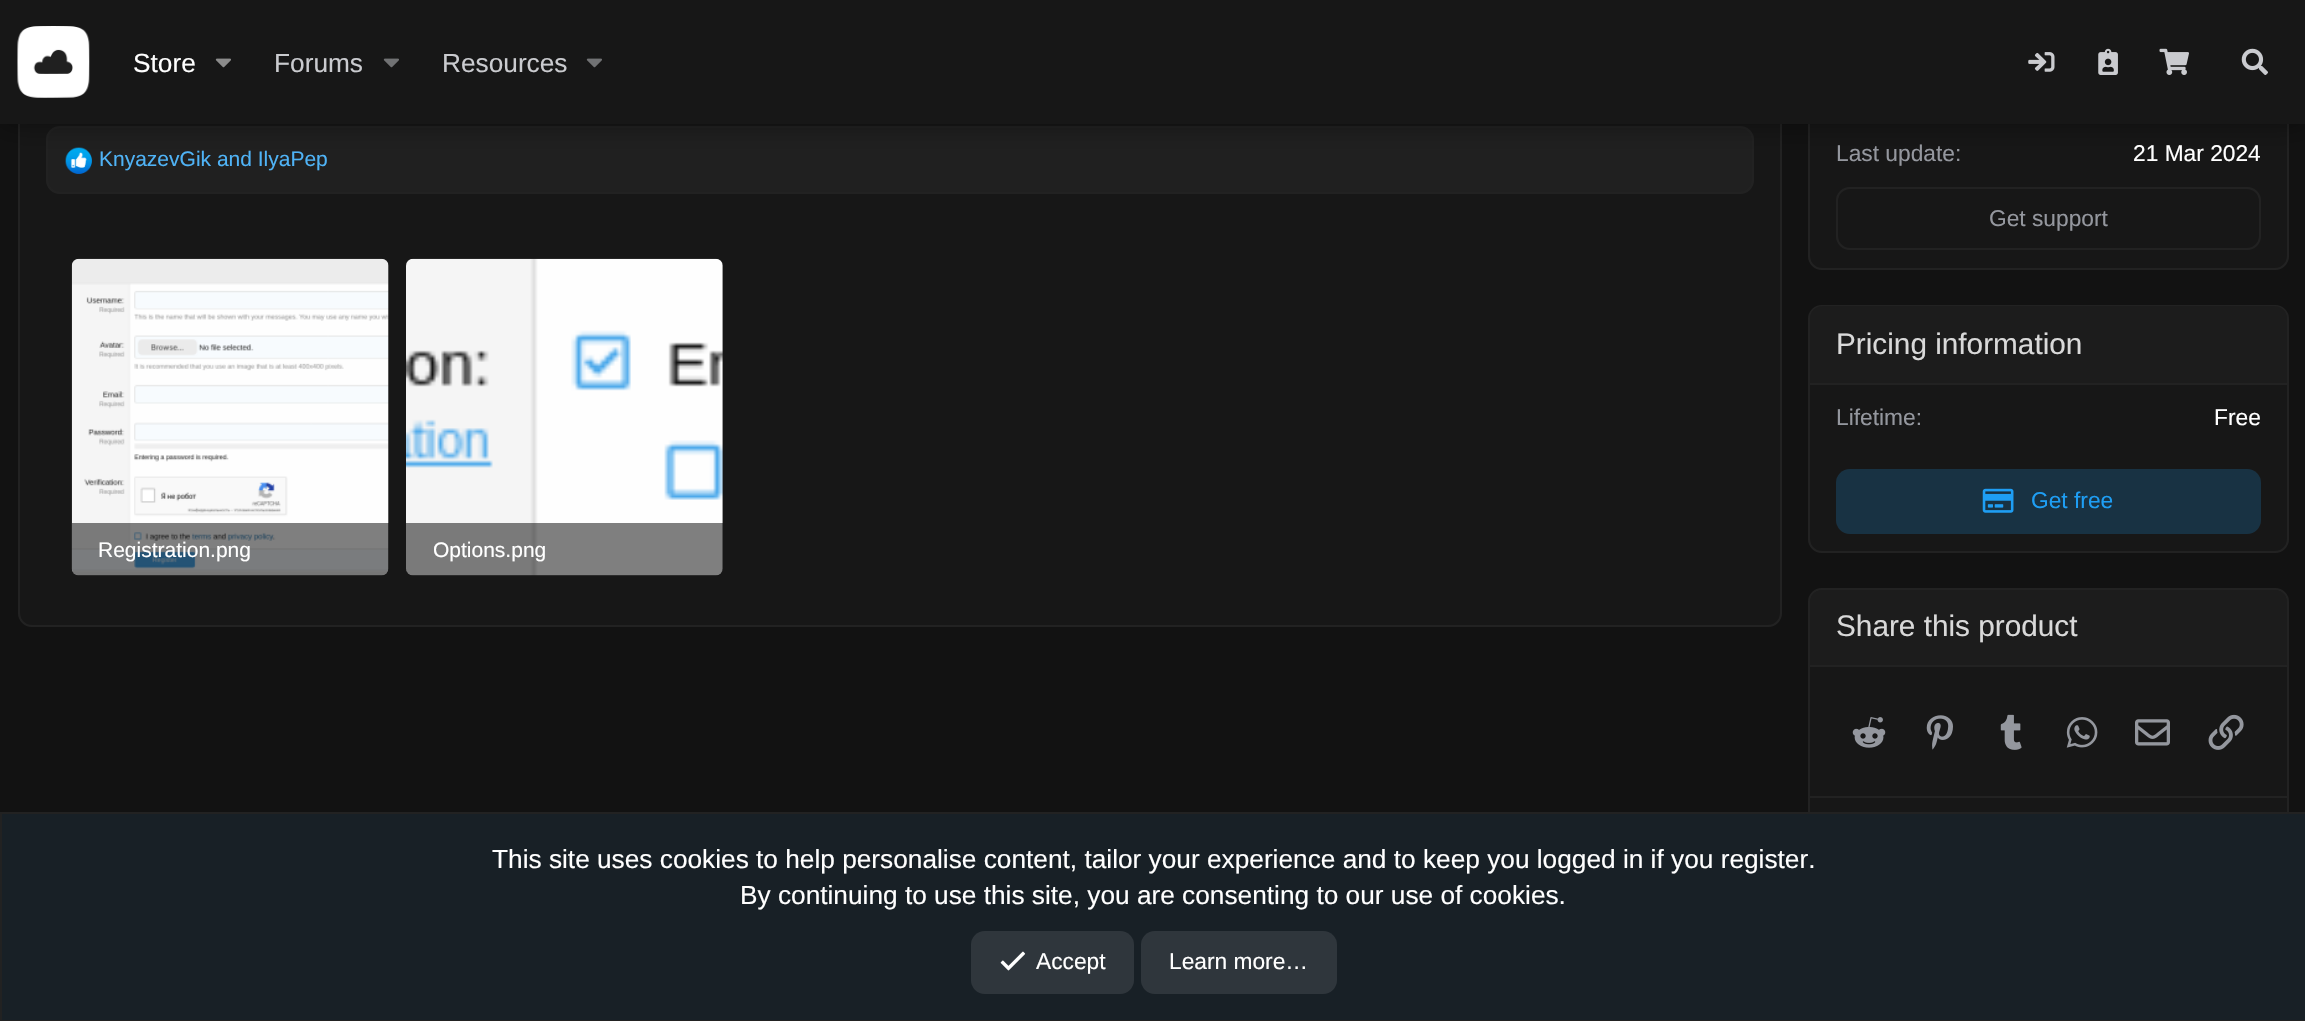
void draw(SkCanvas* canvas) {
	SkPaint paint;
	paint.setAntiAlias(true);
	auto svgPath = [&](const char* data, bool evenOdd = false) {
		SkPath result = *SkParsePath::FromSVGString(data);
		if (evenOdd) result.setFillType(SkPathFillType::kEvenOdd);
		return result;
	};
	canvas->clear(0xff121212);
	paint.setColor(0xff171717);
	canvas->drawRoundRect(SkRect::MakeXYWH(19, -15, 1762, 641), 13, 13, paint);
	paint.setStroke(true);
	paint.setStrokeWidth(2);
	paint.setColor(0xff222222);
	canvas->drawRoundRect(SkRect::MakeXYWH(19, -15, 1762, 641), 13, 13, paint);
	paint.setStroke(false);
	paint.setColor(0xff202020);
	canvas->drawRoundRect(SkRect::MakeXYWH(47, 127, 1706, 66), 13, 13, paint);
	paint.setStroke(true);
	paint.setColor(0xff222222);
	canvas->drawRoundRect(SkRect::MakeXYWH(47, 127, 1706, 66), 13, 13, paint);
	canvas->drawImageRect(SkImages::DeferredFromEncodedData(SkData::MakeFromFileName("img8.png")), SkRect::MakeXYWH(65, 147, 27, 27), SkSamplingOptions());
	paint.setStroke(false);
	paint.setColor(0xff171717);
	canvas->drawRoundRect(SkRect::MakeXYWH(1809, -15, 479, 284), 13, 13, paint);
	paint.setStroke(true);
	paint.setColor(0xff222222);
	canvas->drawRoundRect(SkRect::MakeXYWH(1809, -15, 479, 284), 13, 13, paint);
	paint.setStroke(false);
	paint.setColor(0x66000000);
	paint.setMaskFilter(SkMaskFilter::MakeBlur(kNormal_SkBlurStyle, 13));
	canvas->drawRect(SkRect::MakeXYWH(0, 0, 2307, 124), paint);
	paint.setMaskFilter(nullptr);
	paint.setColor(0xff171717);
	canvas->drawRect(SkRect::MakeXYWH(0, 0, 2305, 124), paint);
	canvas->drawImageRect(SkImages::DeferredFromEncodedData(SkData::MakeFromFileName("img1.png")), SkRect::MakeXYWH(17, 26, 73, 72), SkSamplingOptions());
	SkFont f1(fontMgr->matchFamilyStyle("Liberation Sans", SkFontStyle::Normal()), 26.25);
	f1.setSubpixel(true);
	paint.setColor(0xffffffff);
	canvas->drawString("Store", 133, 72, f1, paint);
	canvas->drawImageRect(SkImages::DeferredFromEncodedData(SkData::MakeFromFileName("img2.png")), SkRect::MakeXYWH(215, 58, 16, 10), SkSamplingOptions());
	paint.setColor(0xffcacbcf);
	canvas->drawString("Forums", 274, 72, f1, paint);
	canvas->drawImageRect(SkImages::DeferredFromEncodedData(SkData::MakeFromFileName("img3.png")), SkRect::MakeXYWH(383, 58, 16, 10), SkSamplingOptions());
	canvas->drawString("Resources", 442, 72, f1, paint);
	canvas->drawImageRect(SkImages::DeferredFromEncodedData(SkData::MakeFromFileName("img3.png")), SkRect::MakeXYWH(586, 58, 16, 10), SkSamplingOptions());
	canvas->drawImageRect(SkImages::DeferredFromEncodedData(SkData::MakeFromFileName("img4.png")), SkRect::MakeXYWH(2028, 52, 27, 20), SkSamplingOptions());
	canvas->drawImageRect(SkImages::DeferredFromEncodedData(SkData::MakeFromFileName("img5.png")), SkRect::MakeXYWH(2098, 48, 20, 27), SkSamplingOptions());
	canvas->drawImageRect(SkImages::DeferredFromEncodedData(SkData::MakeFromFileName("img6.png")), SkRect::MakeXYWH(2159, 48, 30, 27), SkSamplingOptions());
	canvas->drawImageRect(SkImages::DeferredFromEncodedData(SkData::MakeFromFileName("img7.png")), SkRect::MakeXYWH(2241, 48, 27, 27), SkSamplingOptions());
	SkFont f2(fontMgr->matchFamilyStyle("Liberation Sans", SkFontStyle::Normal()), 21);
	f2.setSubpixel(true);
	paint.setColor(0xff4fb3f6);
	canvas->drawString("KnyazevGik and IlyaPep", 99, 166, f2, paint);
	paint.setColor(0xff202020);
	canvas->drawRoundRect(SkRect::MakeXYWH(72, 259, 317, 317), 7, 7, paint);
	canvas->drawImageRect(SkImages::DeferredFromEncodedData(SkData::MakeFromFileName("img9.png")), SkRect::MakeXYWH(71, 258, 318, 318), SkSamplingOptions());
	paint.setColor(0x80000000);
	canvas->drawPath(svgPath("M72 523H389V569C389 573 386 576 382 576H79C75 576 72 573 72 569Z"), paint);
	paint.setColor(0xffffffff);
	canvas->drawString("Registration.png", 98, 557, f2, paint);
	paint.setColor(0xff202020);
	canvas->drawRoundRect(SkRect::MakeXYWH(406, 259, 317, 317), 7, 7, paint);
	canvas->drawImageRect(SkImages::DeferredFromEncodedData(SkData::MakeFromFileName("img10.png")), SkRect::MakeXYWH(406, 258, 317, 318), SkSamplingOptions());
	paint.setColor(0x80000000);
	canvas->drawPath(svgPath("M406 523H723V569C723 573 720 576 716 576H413C409 576 406 573 406 569Z"), paint);
	paint.setColor(0xffffffff);
	canvas->drawString("Options.png", 433, 557, f2, paint);
	SkFont f3(fontMgr->matchFamilyStyle("Liberation Sans", SkFontStyle::Normal()), 22.75);
	f3.setSubpixel(true);
	paint.setColor(0xff94979e);
	canvas->drawString("Last update:", 1836, 161, f3, paint);
	paint.setColor(0xffffffff);
	canvas->drawString("21 Mar 2024", 2133, 161, f3, paint);
	paint.setStroke(true);
	paint.setColor(0xff222222);
	canvas->drawRoundRect(SkRect::MakeXYWH(1837, 188, 423, 61), 13, 13, paint);
	paint.setStroke(false);
	paint.setColor(0xff94979e);
	canvas->drawString("Get support", 1989, 226, f3, paint);
	paint.setColor(0xff171717);
	canvas->drawRoundRect(SkRect::MakeXYWH(1809, 306, 479, 246), 13, 13, paint);
	paint.setStroke(true);
	paint.setColor(0xff222222);
	canvas->drawRoundRect(SkRect::MakeXYWH(1809, 306, 479, 246), 13, 13, paint);
	paint.setStroke(false);
	paint.setColor(0xff1c1c1c);
	canvas->drawPath(svgPath("M1822 306H2275C2281.5 306 2287 311.5 2287 318V385H1810V318C1810 311.5 1815.5 306 1822 306Z"), paint);
	paint.setColor(0xff222222);
	canvas->drawRect(SkRect::MakeXYWH(1810, 383, 477, 2), paint);
	SkFont f4(fontMgr->matchFamilyStyle("Liberation Sans", SkFontStyle::Normal()), 29.75);
	f4.setSubpixel(true);
	paint.setColor(0xffd9d9d9);
	canvas->drawString("Pricing information", 1836, 354, f4, paint);
	paint.setColor(0xff94979e);
	canvas->drawString("Lifetime:", 1836, 425, f3, paint);
	paint.setColor(0xffffffff);
	canvas->drawString("Free", 2214, 425, f3, paint);
	paint.setColor(0xff183243);
	canvas->drawRoundRect(SkRect::MakeXYWH(1836, 469, 425, 65), 14, 14, paint);
	canvas->drawImageRect(SkImages::DeferredFromEncodedData(SkData::MakeFromFileName("img11.png")), SkRect::MakeXYWH(1982, 488, 32, 25), SkSamplingOptions());
	paint.setColor(0xff1e9ef4);
	canvas->drawString("Get free", 2031, 508, f3, paint);
	paint.setColor(0xff171717);
	canvas->drawRoundRect(SkRect::MakeXYWH(1809, 589, 479, 350), 13, 13, paint);
	paint.setStroke(true);
	paint.setColor(0xff222222);
	canvas->drawRoundRect(SkRect::MakeXYWH(1809, 589, 479, 350), 13, 13, paint);
	paint.setStroke(false);
	paint.setColor(0xff1c1c1c);
	canvas->drawPath(svgPath("M1822 590H2275C2281.5 590 2287 595.5 2287 602V667H1810V602C1810 595.5 1815.5 590 1822 590Z"), paint);
	paint.setColor(0xff222222);
	canvas->drawRect(SkRect::MakeXYWH(1810, 665, 477, 2), paint);
	paint.setColor(0xffd9d9d9);
	canvas->drawString("Share this product", 1836, 636, f4, paint);
	canvas->drawImageRect(SkImages::DeferredFromEncodedData(SkData::MakeFromFileName("img12.png")), SkRect::MakeXYWH(1852, 717, 34, 31), SkSamplingOptions());
	canvas->drawImageRect(SkImages::DeferredFromEncodedData(SkData::MakeFromFileName("img13.png")), SkRect::MakeXYWH(1926, 715, 27, 35), SkSamplingOptions());
	canvas->drawImageRect(SkImages::DeferredFromEncodedData(SkData::MakeFromFileName("img14.png")), SkRect::MakeXYWH(2000, 714, 22, 36), SkSamplingOptions());
	canvas->drawImageRect(SkImages::DeferredFromEncodedData(SkData::MakeFromFileName("img15.png")), SkRect::MakeXYWH(2066, 717, 32, 31), SkSamplingOptions());
	canvas->drawImageRect(SkImages::DeferredFromEncodedData(SkData::MakeFromFileName("img16.png")), SkRect::MakeXYWH(2135, 719, 35, 27), SkSamplingOptions());
	canvas->drawImageRect(SkImages::DeferredFromEncodedData(SkData::MakeFromFileName("img17.png")), SkRect::MakeXYWH(2208, 714, 36, 36), SkSamplingOptions());
	paint.setColor(0xff222222);
	canvas->drawRect(SkRect::MakeXYWH(1810, 796, 477, 2), paint);
	paint.setColor(0xff182026);
	canvas->drawRect(SkRect::MakeXYWH(1, 813, 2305, 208), paint);
	paint.setStroke(true);
	paint.setColor(0xff222222);
	canvas->drawRect(SkRect::MakeXYWH(1, 813, 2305, 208), paint);
	paint.setStroke(false);
	paint.setColor(0xffffffff);
	canvas->drawString("This site uses cookies to help personalise content, tailor your experience and to keep you logged in if you register.", 492, 868, f1, paint);
	canvas->drawString("By continuing to use this site, you are consenting to our use of cookies.", 740, 904, f1, paint);
	paint.setColor(0xff2f363c);
	canvas->drawRoundRect(SkRect::MakeXYWH(971, 931, 163, 63), 14, 14, paint);
	canvas->drawImageRect(SkImages::DeferredFromEncodedData(SkData::MakeFromFileName("img18.png")), SkRect::MakeXYWH(1000, 951, 26, 20), SkSamplingOptions());
	paint.setColor(0xffffffff);
	canvas->drawString("Accept", 1036, 969, f3, paint);
	paint.setColor(0xff2f363c);
	canvas->drawRoundRect(SkRect::MakeXYWH(1141, 931, 196, 63), 14, 14, paint);
	paint.setColor(0xffffffff);
	canvas->drawString("Learn more…", 1169, 969, f3, paint);
}
